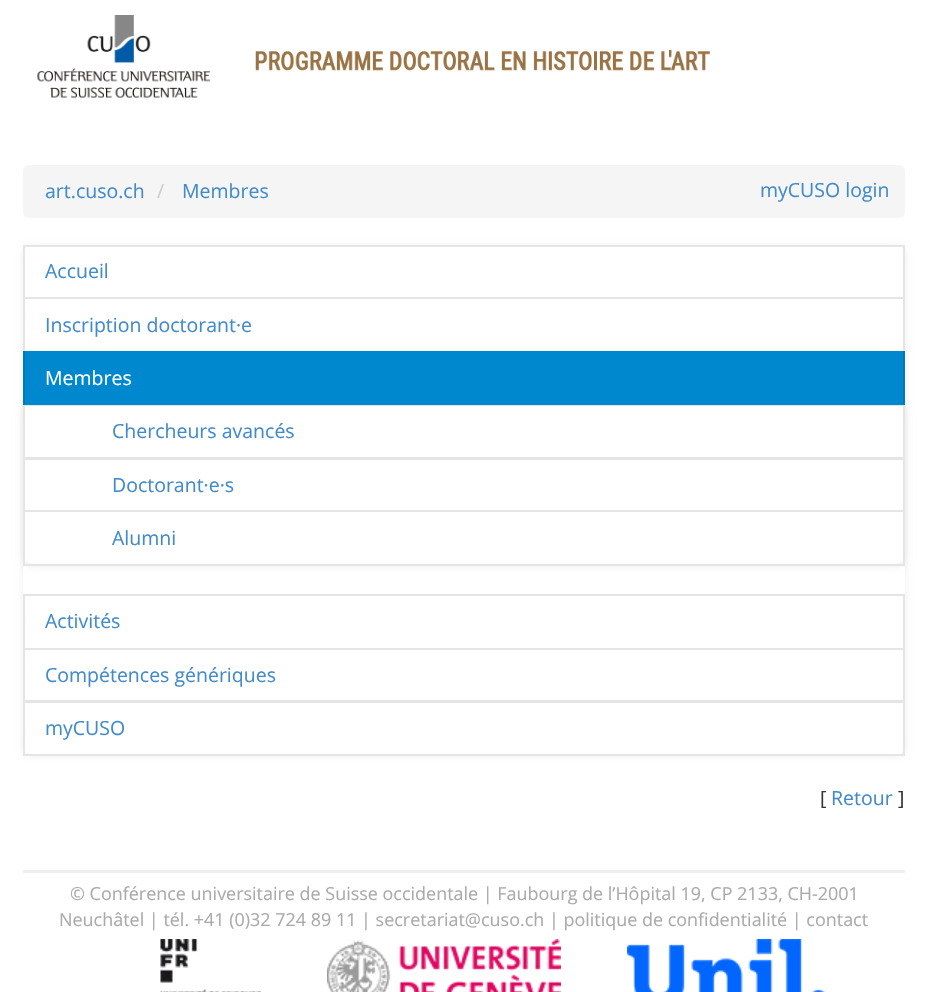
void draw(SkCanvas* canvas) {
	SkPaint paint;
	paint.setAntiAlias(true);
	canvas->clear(0xffffffff);
	canvas->drawImageRect(SkImages::DeferredFromEncodedData(SkData::MakeFromFileName("img1.png")), SkRect::MakeXYWH(37, 15, 173, 83), SkSamplingOptions());
	canvas->drawImageRect(SkImages::DeferredFromEncodedData(SkData::MakeFromFileName("img2.png")), SkRect::MakeXYWH(255, 49, 455, 22), SkSamplingOptions());
	paint.setColor(0xfff5f5f5);
	canvas->drawRoundRect(SkRect::MakeXYWH(23, 165, 882, 53), 6, 6, paint);
	SkFont f1(fontMgr->matchFamilyStyle("Open Sans", SkFontStyle::Normal()), 19.5);
	f1.setSubpixel(true);
	paint.setColor(0xff428bca);
	canvas->drawString("art.cuso.ch", 45, 198, f1, paint);
	paint.setColor(0xffcccccc);
	canvas->drawString("/", 157, 198, f1, paint);
	paint.setColor(0xff428bca);
	canvas->drawString("Membres", 182, 198, f1, paint);
	canvas->drawString("myCUSO login", 760, 197, f1, paint);
	paint.setColor(0x12000000);
	paint.setMaskFilter(SkMaskFilter::MakeBlur(kNormal_SkBlurStyle, 3));
	canvas->drawRoundRect(SkRect::MakeXYWH(23, 246, 882, 510), 9, 9, paint);
	paint.setMaskFilter(nullptr);
	paint.setColor(0xffffffff);
	canvas->drawRoundRect(SkRect::MakeXYWH(23, 245, 882, 510), 9, 9, paint);
	paint.setStroke(true);
	paint.setStrokeWidth(2);
	paint.setColor(0xffe5e5e5);
	canvas->drawRect(SkRect::MakeXYWH(24, 246, 880, 52), paint);
	paint.setStroke(false);
	paint.setColor(0xff428bca);
	canvas->drawString("Accueil", 45, 278, f1, paint);
	paint.setStroke(true);
	paint.setColor(0xffe5e5e5);
	canvas->drawRect(SkRect::MakeXYWH(24, 298, 880, 54), paint);
	paint.setStroke(false);
	paint.setColor(0xff428bca);
	canvas->drawString("Inscription doctorant·e", 45, 332, f1, paint);
	paint.setColor(0x12000000);
	paint.setMaskFilter(SkMaskFilter::MakeBlur(kNormal_SkBlurStyle, 3));
	canvas->drawRoundRect(SkRect::MakeXYWH(23, 405, 882, 161), 9, 9, paint);
	paint.setMaskFilter(nullptr);
	paint.setColor(0xffffffff);
	canvas->drawRoundRect(SkRect::MakeXYWH(23, 404, 882, 160), 9, 9, paint);
	paint.setStroke(true);
	paint.setColor(0xffe5e5e5);
	canvas->drawRect(SkRect::MakeXYWH(24, 405, 880, 53), paint);
	paint.setStroke(false);
	paint.setColor(0xff0088cf);
	canvas->drawRect(SkRect::MakeXYWH(25, 351, 878, 54), paint);
	paint.setColor(0xff007aba);
	canvas->drawRect(SkRect::MakeXYWH(903, 351, 2, 54), paint);
	canvas->drawRect(SkRect::MakeXYWH(23, 351, 2, 54), paint);
	paint.setColor(0xffffffff);
	canvas->drawString("Membres", 45, 385, f1, paint);
	paint.setColor(0xff428bca);
	canvas->drawString("Chercheurs avancés", 112, 438, f1, paint);
	paint.setStroke(true);
	paint.setColor(0xffe5e5e5);
	canvas->drawRect(SkRect::MakeXYWH(24, 459, 880, 52), paint);
	paint.setStroke(false);
	paint.setColor(0xff428bca);
	canvas->drawString("Doctorant·e·s", 112, 492, f1, paint);
	paint.setStroke(true);
	paint.setColor(0xffe5e5e5);
	canvas->drawRect(SkRect::MakeXYWH(24, 511, 880, 54), paint);
	paint.setStroke(false);
	paint.setColor(0xff428bca);
	canvas->drawString("Alumni", 112, 545, f1, paint);
	paint.setStroke(true);
	paint.setColor(0xffe5e5e5);
	canvas->drawRect(SkRect::MakeXYWH(24, 595, 880, 54), paint);
	paint.setStroke(false);
	paint.setColor(0xff428bca);
	canvas->drawString("Activités", 45, 628, f1, paint);
	paint.setStroke(true);
	paint.setColor(0xffe5e5e5);
	canvas->drawRect(SkRect::MakeXYWH(24, 649, 880, 52), paint);
	paint.setStroke(false);
	paint.setColor(0xff428bca);
	canvas->drawString("Compétences génériques", 45, 682, f1, paint);
	paint.setStroke(true);
	paint.setColor(0xffe5e5e5);
	canvas->drawRect(SkRect::MakeXYWH(24, 702, 880, 53), paint);
	paint.setStroke(false);
	paint.setColor(0xff428bca);
	canvas->drawString("myCUSO", 45, 735, f1, paint);
	paint.setColor(0xff333333);
	canvas->drawString("[", 820, 805, f1, paint);
	paint.setColor(0xff428bca);
	canvas->drawString("Retour", 831, 805, f1, paint);
	paint.setColor(0xff333333);
	canvas->drawString("]", 898, 805, f1, paint);
	paint.setColor(0xffeeeeee);
	canvas->drawRect(SkRect::MakeXYWH(23, 870, 882, 3), paint);
	SkFont f2(fontMgr->matchFamilyStyle("Open Sans", SkFontStyle::Normal()), 17.95);
	f2.setSubpixel(true);
	paint.setColor(0xffaaaaaa);
	canvas->drawString("© Conférence universitaire de Suisse occidentale | Faubourg de l’Hôpital 19, CP 2133, CH-2001", 70, 900, f2, paint);
	canvas->drawString("Neuchâtel | tél. +41 (0)32 724 89 11 | secretariat@cuso.ch | politique de confidentialité | contact", 59, 926, f2, paint);
	canvas->drawImageRect(SkImages::DeferredFromEncodedData(SkData::MakeFromFileName("img3.png")), SkRect::MakeXYWH(160, 939, 101, 53), SkSamplingOptions());
	canvas->drawImageRect(SkImages::DeferredFromEncodedData(SkData::MakeFromFileName("img4.png")), SkRect::MakeXYWH(327, 939, 234, 53), SkSamplingOptions());
	canvas->drawImageRect(SkImages::DeferredFromEncodedData(SkData::MakeFromFileName("img5.png")), SkRect::MakeXYWH(627, 939, 199, 53), SkSamplingOptions());
}
